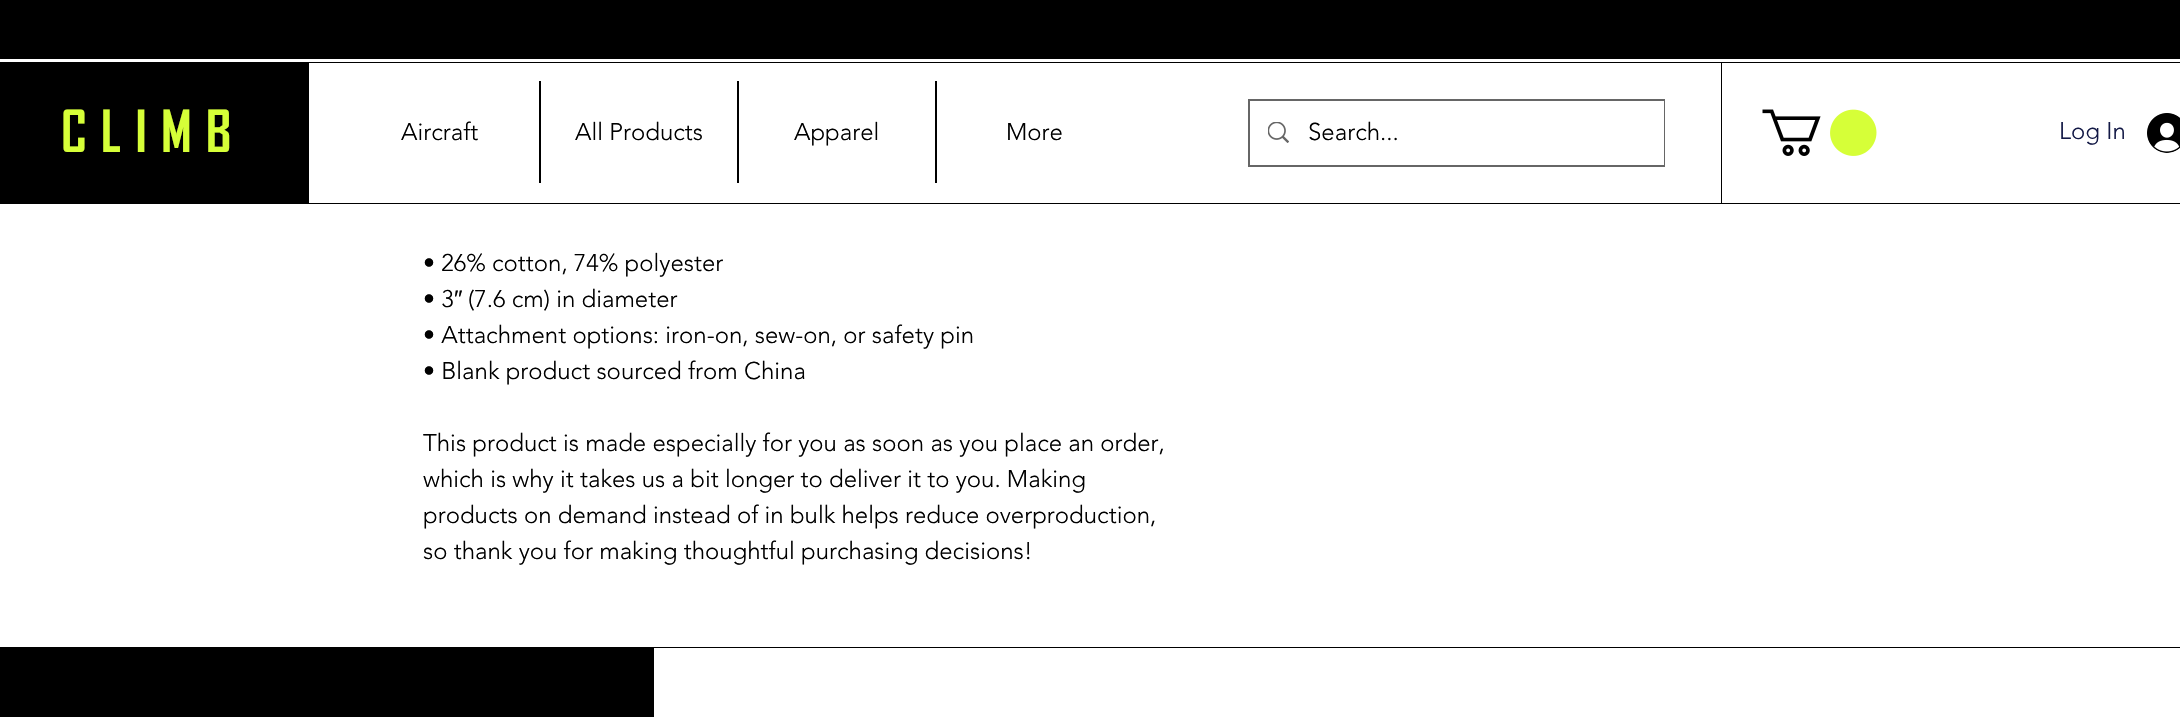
void draw(SkCanvas* canvas) {
	SkPaint paint;
	paint.setAntiAlias(true);
	auto spacedText = [&](const char* s, float x, float y, const SkFont& font, const SkPaint& ink, float letter, float word) {
		std::vector<SkGlyphID> glyphs(font.countText(s, strlen(s), SkTextEncoding::kUTF8));
		std::vector<float> xs(glyphs.size());
		font.textToGlyphs(s, strlen(s), SkTextEncoding::kUTF8, glyphs);
		font.getXPos(glyphs, xs, x);
		float extra = 0;
		for (size_t i = 0; i < glyphs.size(); i++) {
			xs[i] += extra;
			extra += letter + word * (glyphs[i] == font.unicharToGlyph(' '));
		}
		canvas->drawTextBlob(SkTextBlob::MakeFromPosHGlyphs(glyphs, xs, y, font), 0, 0, ink);
	};
	canvas->clear(0xffffffff);
	paint.setColor(0xff000000);
	canvas->drawRect(SkRect::MakeXYWH(0, 0, 2180, 59), paint);
	canvas->drawRect(SkRect::MakeXYWH(0, 62, 2180, 142), paint);
	SkFont f1(fontMgr->matchFamilyStyle("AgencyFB", SkFontStyle::Bold()), 55.5);
	f1.setSubpixel(true);
	paint.setColor(0xffd6ff38);
	spacedText("CLIMB", 61, 152, f1, paint, 14, 0);
	paint.setColor(0xffffffff);
	canvas->drawRect(SkRect::MakeXYWH(309, 63, 1412, 140), paint);
	SkFont f2(fontMgr->matchFamilyStyle("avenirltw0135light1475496", SkFontStyle(300, SkFontStyle::kNormal_Width, SkFontStyle::kUpright_Slant)), 24);
	f2.setSubpixel(true);
	paint.setColor(0xff000000);
	canvas->drawString("Aircraft", 401, 140, f2, paint);
	canvas->drawRect(SkRect::MakeXYWH(539, 81, 2, 102), paint);
	canvas->drawString("All Products", 575, 140, f2, paint);
	canvas->drawRect(SkRect::MakeXYWH(737, 81, 2, 102), paint);
	canvas->drawString("Apparel", 794, 140, f2, paint);
	canvas->drawRect(SkRect::MakeXYWH(935, 81, 2, 102), paint);
	canvas->drawString("More", 1006, 140, f2, paint);
	paint.setStroke(true);
	paint.setStrokeWidth(2);
	paint.setColor(0xff666666);
	canvas->drawRect(SkRect::MakeXYWH(1249, 100, 415, 66), paint);
	paint.setStroke(false);
	paint.setColor(0xffffffff);
	canvas->drawRect(SkRect::MakeXYWH(1663, 101, 1, 64), paint);
	canvas->drawImageRect(SkImages::DeferredFromEncodedData(SkData::MakeFromFileName("img1.png")), SkRect::MakeXYWH(1268, 122, 21, 21), SkSamplingOptions());
	paint.setColor(0xff000000);
	canvas->drawString("Search...", 1308, 140, f2, paint);
	paint.setColor(0xffffffff);
	canvas->drawRect(SkRect::MakeXYWH(1722, 63, 458, 140), paint);
	canvas->drawImageRect(SkImages::DeferredFromEncodedData(SkData::MakeFromFileName("img2.png")), SkRect::MakeXYWH(1762, 109, 115, 47), SkSamplingOptions());
	paint.setColor(0xff131946);
	canvas->drawString("Log In", 2059, 139, f2, paint);
	canvas->drawImageRect(SkImages::DeferredFromEncodedData(SkData::MakeFromFileName("img3.png")), SkRect::MakeXYWH(2147, 113, 33, 40), SkSamplingOptions());
	paint.setColor(0xff000000);
	canvas->drawString("• 26% cotton, 74% polyester", 423, 271, f2, paint);
	canvas->drawString("• 3", 423, 307, f2, paint);
	SkFont f3(fontMgr->matchFamilyStyle("Liberation Sans", SkFontStyle::Normal()), 24);
	f3.setSubpixel(true);
	canvas->drawString("″", 454, 307, f3, paint);
	canvas->drawString("(7.6 cm) in diameter", 468, 307, f2, paint);
	canvas->drawString("• Attachment options: iron-on, sew-on, or safety pin", 423, 343, f2, paint);
	canvas->drawString("• Blank product sourced from China", 423, 379, f2, paint);
	canvas->drawString("This product is made especially for you as soon as you place an order,", 423, 451, f2, paint);
	canvas->drawString("which is why it takes us a bit longer to deliver it to you. Making", 423, 487, f2, paint);
	canvas->drawString("products on demand instead of in bulk helps reduce overproduction,", 423, 523, f2, paint);
	canvas->drawString("so thank you for making thoughtful purchasing decisions!", 423, 559, f2, paint);
	canvas->drawRect(SkRect::MakeXYWH(0, 647, 2180, 70), paint);
	paint.setColor(0xffffffff);
	canvas->drawRect(SkRect::MakeXYWH(654, 648, 1526, 69), paint);
}
